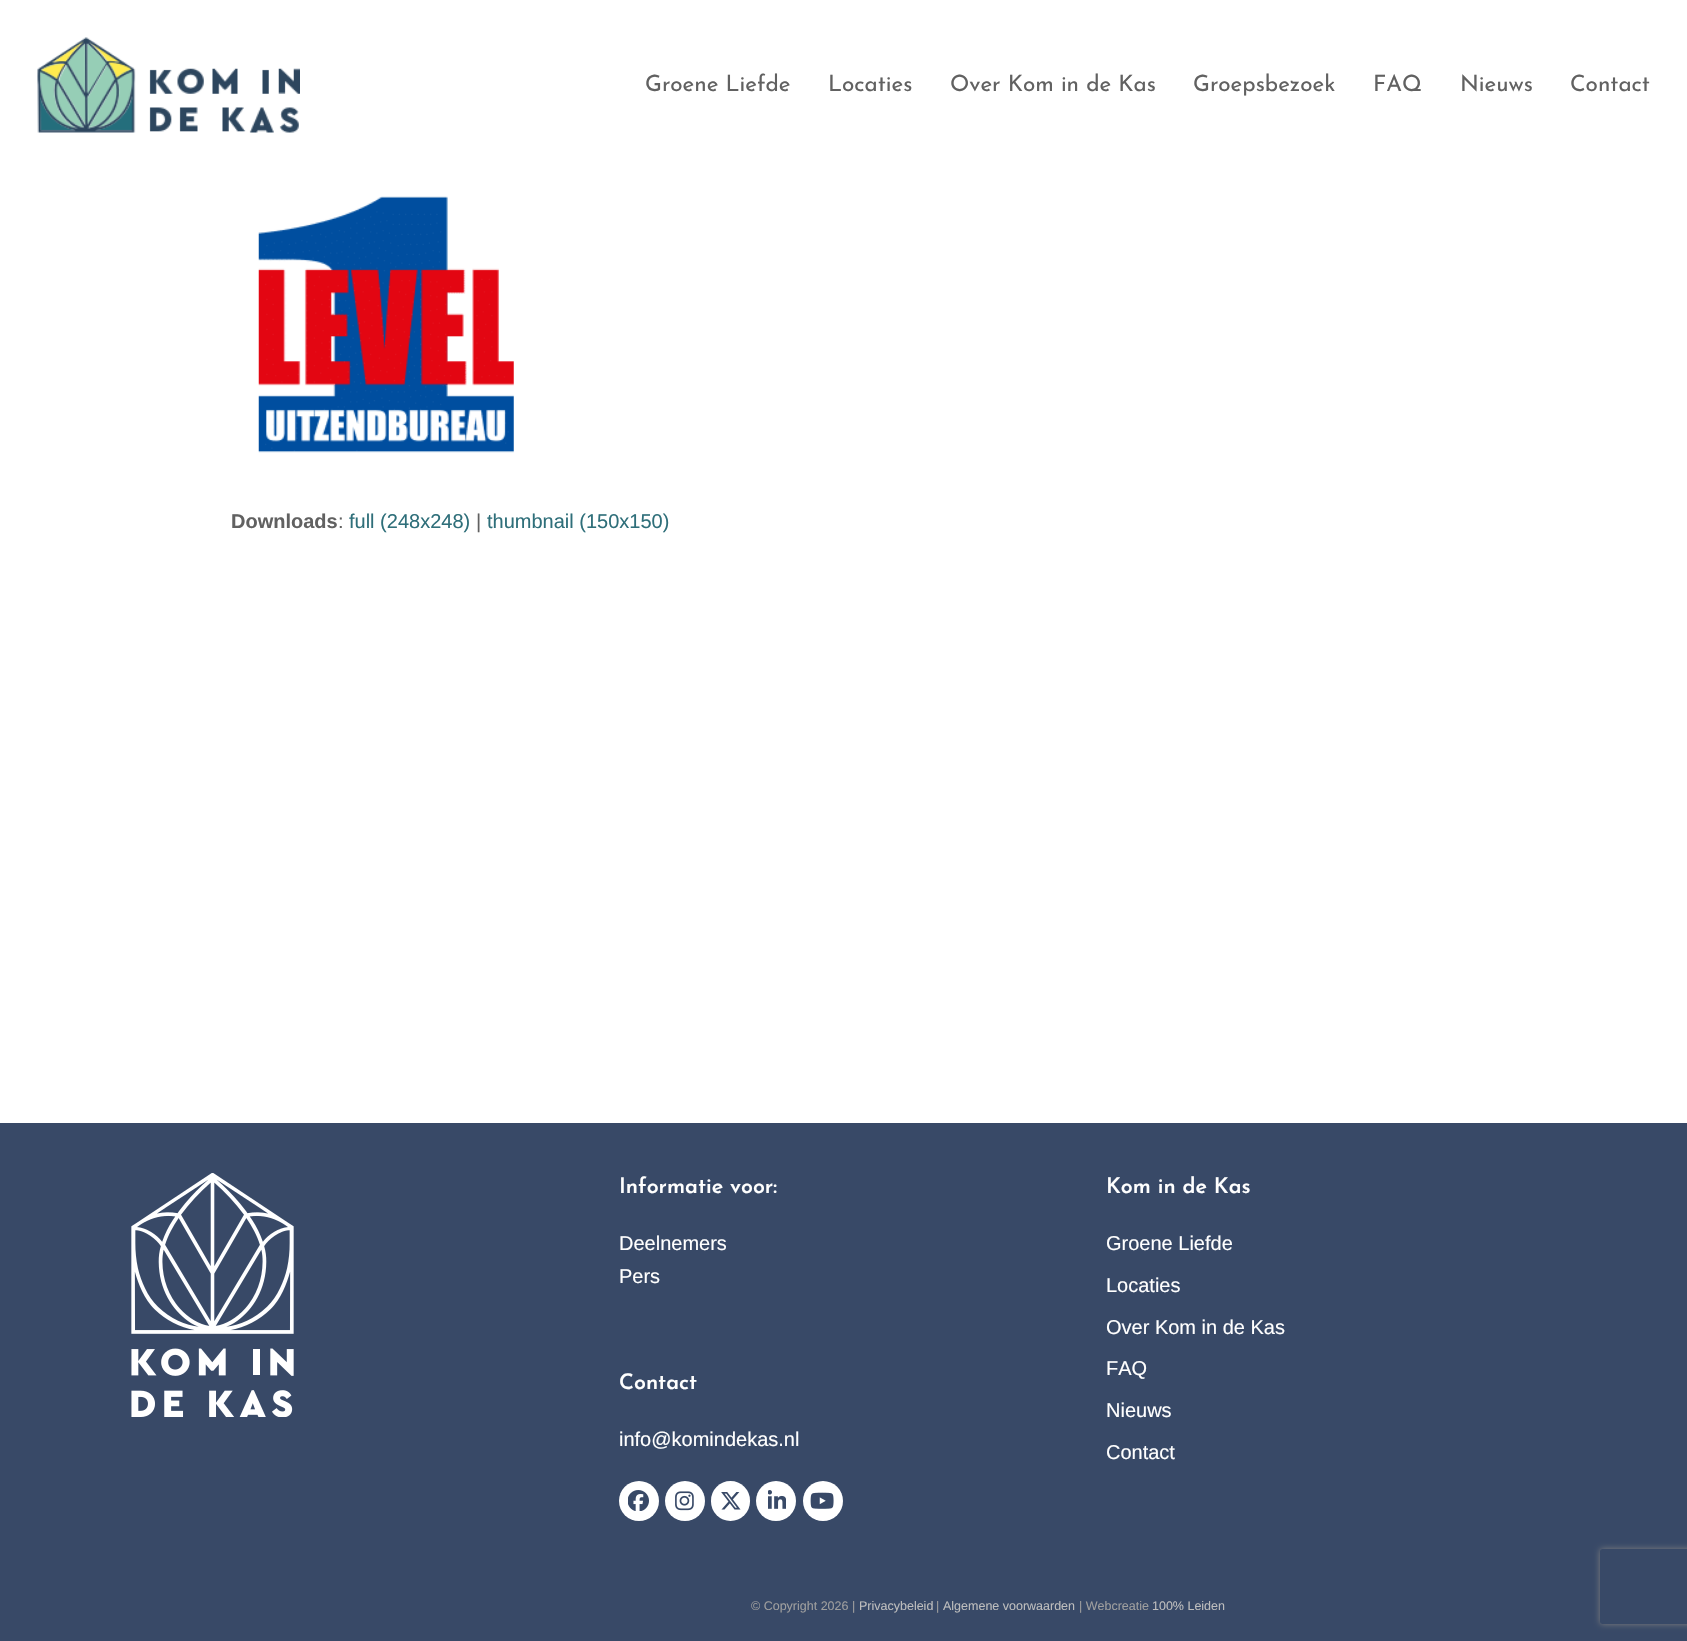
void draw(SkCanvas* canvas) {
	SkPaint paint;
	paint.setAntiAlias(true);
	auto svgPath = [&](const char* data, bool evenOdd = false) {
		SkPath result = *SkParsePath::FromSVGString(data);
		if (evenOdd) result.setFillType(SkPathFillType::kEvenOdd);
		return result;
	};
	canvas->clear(0xffffffff);
	canvas->drawImageRect(SkImages::DeferredFromEncodedData(SkData::MakeFromFileName("img1.png")), SkRect::MakeXYWH(37, 37, 263, 96), SkSamplingOptions());
	SkFont f1(fontMgr->matchFamilyStyle("Josefin Sans", SkFontStyle::Normal()), 22.5);
	f1.setSubpixel(true);
	paint.setColor(0xff616161);
	canvas->drawString("Groene Liefde", 645, 91, f1, paint);
	canvas->drawString("Locaties", 828, 91, f1, paint);
	canvas->drawString("Over Kom in de Kas", 950, 91, f1, paint);
	canvas->drawString("Groepsbezoek", 1193, 91, f1, paint);
	canvas->drawString("FAQ", 1373, 91, f1, paint);
	canvas->drawString("Nieuws", 1460, 91, f1, paint);
	canvas->drawString("Contact", 1570, 91, f1, paint);
	canvas->drawImageRect(SkImages::DeferredFromEncodedData(SkData::MakeFromFileName("img2.png")), SkRect::MakeXYWH(258, 196, 256, 257), SkSamplingOptions());
	SkFont f2(fontMgr->matchFamilyStyle("Liberation Sans", SkFontStyle::Bold()), 20);
	f2.setSubpixel(true);
	canvas->drawString("Downloads", 231, 528, f2, paint);
	SkFont f3(fontMgr->matchFamilyStyle("Liberation Sans", SkFontStyle::Normal()), 20);
	f3.setSubpixel(true);
	canvas->drawString(":", 338, 528, f3, paint);
	paint.setColor(0xff2f6f7a);
	canvas->drawString("full (248x248)", 349, 528, f3, paint);
	paint.setColor(0xff616161);
	canvas->drawString("|", 476, 528, f3, paint);
	paint.setColor(0xff2f6f7a);
	canvas->drawString("thumbnail (150x150)", 487, 528, f3, paint);
	paint.setColor(0xff384967);
	canvas->drawRect(SkRect::MakeXYWH(0, 1123, 1687, 518), paint);
	canvas->drawImageRect(SkImages::DeferredFromEncodedData(SkData::MakeFromFileName("img3.png")), SkRect::MakeXYWH(131, 1173, 163, 244), SkSamplingOptions());
	SkFont f4(fontMgr->matchFamilyStyle("Josefin Sans", SkFontStyle(600, SkFontStyle::kNormal_Width, SkFontStyle::kUpright_Slant)), 21.5);
	f4.setSubpixel(true);
	paint.setColor(0xffffffff);
	canvas->drawString("Informatie voor:", 619, 1193, f4, paint);
	canvas->drawString("Deelnemers", 619, 1250, f3, paint);
	canvas->drawString("Pers", 619, 1283, f3, paint);
	canvas->drawString("Contact", 619, 1389, f4, paint);
	canvas->drawString("info@komindekas.nl", 619, 1446, f3, paint);
	canvas->drawCircle(639, 1501, 20, paint);
	canvas->drawImageRect(SkImages::DeferredFromEncodedData(SkData::MakeFromFileName("img4.png")), SkRect::MakeXYWH(628, 1490, 21, 21), SkSamplingOptions());
	canvas->drawCircle(685, 1501, 20, paint);
	canvas->drawImageRect(SkImages::DeferredFromEncodedData(SkData::MakeFromFileName("img5.png")), SkRect::MakeXYWH(675, 1491, 19, 20), SkSamplingOptions());
	canvas->drawRoundRect(SkRect::MakeXYWH(711, 1481, 39, 40), 19.5, 19.5, paint);
	canvas->drawImageRect(SkImages::DeferredFromEncodedData(SkData::MakeFromFileName("img6.png")), SkRect::MakeXYWH(721, 1492, 20, 18), SkSamplingOptions());
	canvas->drawCircle(776, 1501, 20, paint);
	canvas->drawImageRect(SkImages::DeferredFromEncodedData(SkData::MakeFromFileName("img7.png")), SkRect::MakeXYWH(768, 1490, 18, 19), SkSamplingOptions());
	canvas->drawCircle(823, 1501, 20, paint);
	canvas->drawImageRect(SkImages::DeferredFromEncodedData(SkData::MakeFromFileName("img8.png")), SkRect::MakeXYWH(810, 1492, 24, 17), SkSamplingOptions());
	canvas->drawString("Kom in de Kas", 1106, 1193, f4, paint);
	canvas->drawString("Groene Liefde", 1106, 1250, f3, paint);
	canvas->drawString("Locaties", 1106, 1292, f3, paint);
	canvas->drawString("Over Kom in de Kas", 1106, 1334, f3, paint);
	canvas->drawString("FAQ", 1106, 1375, f3, paint);
	canvas->drawString("Nieuws", 1106, 1417, f3, paint);
	canvas->drawString("Contact", 1106, 1459, f3, paint);
	SkFont f5(fontMgr->matchFamilyStyle("Liberation Sans", SkFontStyle::Normal()), 12.5);
	f5.setSubpixel(true);
	paint.setColor(0xff9e9e9e);
	canvas->drawString("© Copyright 2026 |", 751, 1610, f5, paint);
	paint.setColor(0xffbdbdbd);
	canvas->drawString("Privacybeleid", 859, 1610, f5, paint);
	paint.setColor(0xff9e9e9e);
	canvas->drawString("|", 936, 1610, f5, paint);
	paint.setColor(0xffbdbdbd);
	canvas->drawString("Algemene voorwaarden", 943, 1610, f5, paint);
	paint.setColor(0xff9e9e9e);
	canvas->drawString("| Webcreatie", 1079, 1610, f5, paint);
	paint.setColor(0xffbdbdbd);
	canvas->drawString("100% Leiden", 1152, 1610, f5, paint);
	canvas->save();
	canvas->clipPath(svgPath("M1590 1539H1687V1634H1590ZM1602.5 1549H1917.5C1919 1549 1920 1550 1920 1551.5V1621.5C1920 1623 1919 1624 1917.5 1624H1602.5C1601 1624 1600 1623 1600 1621.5V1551.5C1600 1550 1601 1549 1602.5 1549Z", true), true);
	paint.setColor(0xff808080);
	paint.setMaskFilter(SkMaskFilter::MakeBlur(kNormal_SkBlurStyle, 3));
	canvas->drawRoundRect(SkRect::MakeXYWH(1600, 1549, 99, 75), 2.5, 2.5, paint);
	paint.setMaskFilter(nullptr);
	canvas->restore();
}
